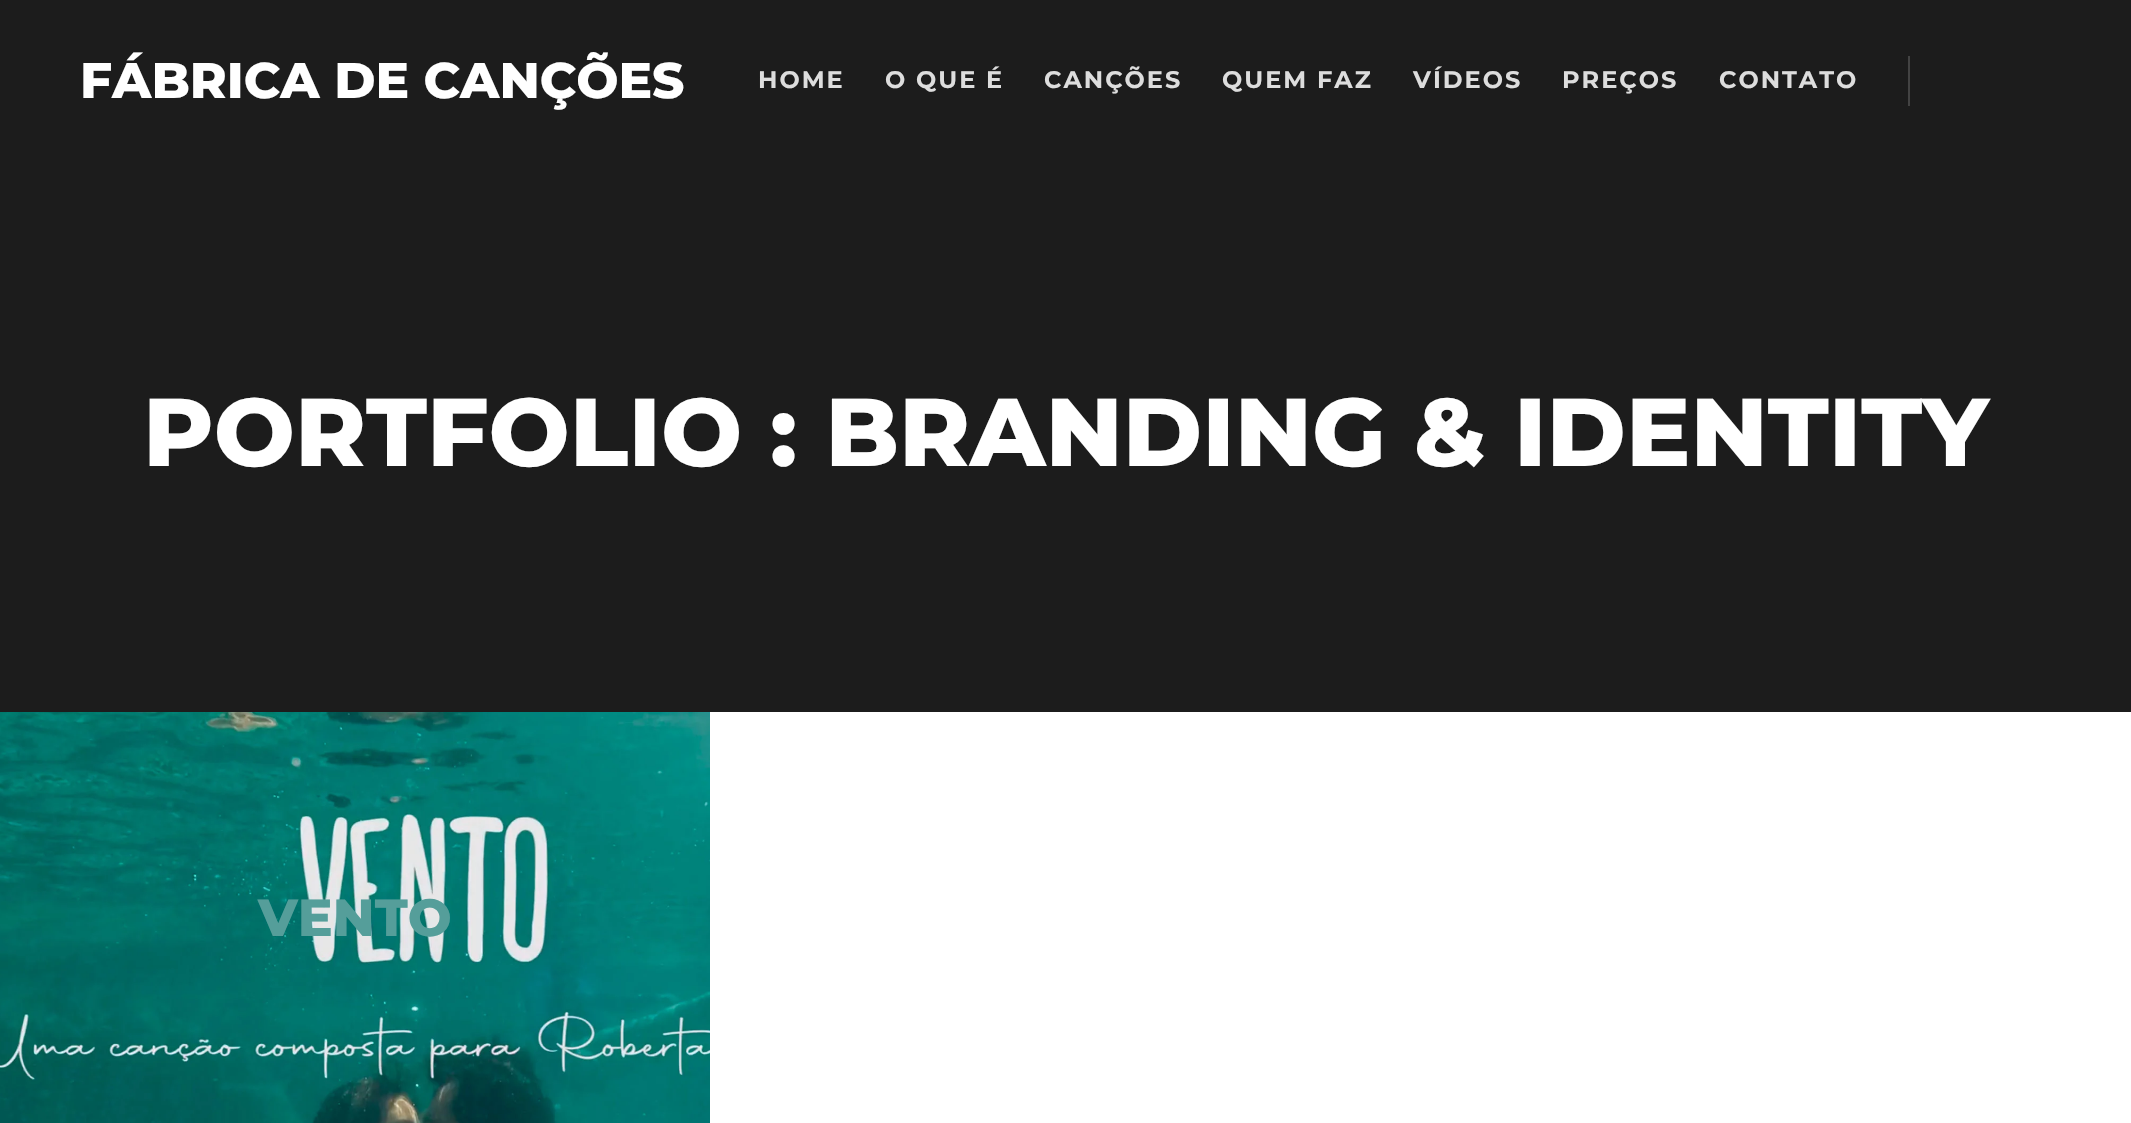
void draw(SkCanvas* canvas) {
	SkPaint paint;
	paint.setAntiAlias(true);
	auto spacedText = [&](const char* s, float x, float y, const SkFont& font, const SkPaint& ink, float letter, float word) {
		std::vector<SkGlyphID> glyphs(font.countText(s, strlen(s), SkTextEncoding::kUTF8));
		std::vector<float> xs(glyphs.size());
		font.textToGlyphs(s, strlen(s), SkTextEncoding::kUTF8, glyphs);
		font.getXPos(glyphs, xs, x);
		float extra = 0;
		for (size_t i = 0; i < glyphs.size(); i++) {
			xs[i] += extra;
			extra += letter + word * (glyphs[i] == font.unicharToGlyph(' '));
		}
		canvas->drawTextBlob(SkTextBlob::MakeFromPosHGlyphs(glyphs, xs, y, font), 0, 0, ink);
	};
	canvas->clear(0xffffffff);
	paint.setColor(0xff1c1c1c);
	canvas->drawRect(SkRect::MakeXYWH(0, 0, 2131, 712), paint);
	SkFont f1(fontMgr->matchFamilyStyle("Montserrat", SkFontStyle(800, SkFontStyle::kNormal_Width, SkFontStyle::kUpright_Slant)), 50);
	f1.setSubpixel(true);
	paint.setColor(0xffffffff);
	canvas->drawString("FÁBRICA DE CANÇÕES", 80, 98, f1, paint);
	SkFont f2(fontMgr->matchFamilyStyle("Montserrat", SkFontStyle::Bold()), 24);
	f2.setSubpixel(true);
	paint.setColor(0xffdddddd);
	spacedText("HOME", 758, 88, f2, paint, 2, 0);
	spacedText("O QUE É", 885, 88, f2, paint, 2, 0);
	spacedText("CANÇÕES", 1044, 88, f2, paint, 2, 0);
	spacedText("QUEM FAZ", 1222, 88, f2, paint, 2, 0);
	spacedText("VÍDEOS", 1413, 88, f2, paint, 2, 0);
	spacedText("PREÇOS", 1562, 88, f2, paint, 2, 0);
	spacedText("CONTATO", 1719, 88, f2, paint, 2, 0);
	paint.setColor(0xff434343);
	canvas->drawRect(SkRect::MakeXYWH(1908, 56, 2, 50), paint);
	SkFont f3(fontMgr->matchFamilyStyle("Montserrat", SkFontStyle(800, SkFontStyle::kNormal_Width, SkFontStyle::kUpright_Slant)), 96);
	f3.setSubpixel(true);
	paint.setColor(0xffffffff);
	canvas->drawString("PORTFOLIO : BRANDING & IDENTITY", 143, 466, f3, paint);
	canvas->drawImageRect(SkImages::DeferredFromEncodedData(SkData::MakeFromFileName("img1.png")), SkRect::MakeXYWH(0, 712, 710, 411), SkSamplingOptions());
	SkFont f4(fontMgr->matchFamilyStyle("Montserrat", SkFontStyle(800, SkFontStyle::kNormal_Width, SkFontStyle::kUpright_Slant)), 52);
	f4.setSubpixel(true);
	paint.setColor(0xff559e9a);
	canvas->drawString("VENTO", 258, 936, f4, paint);
}
